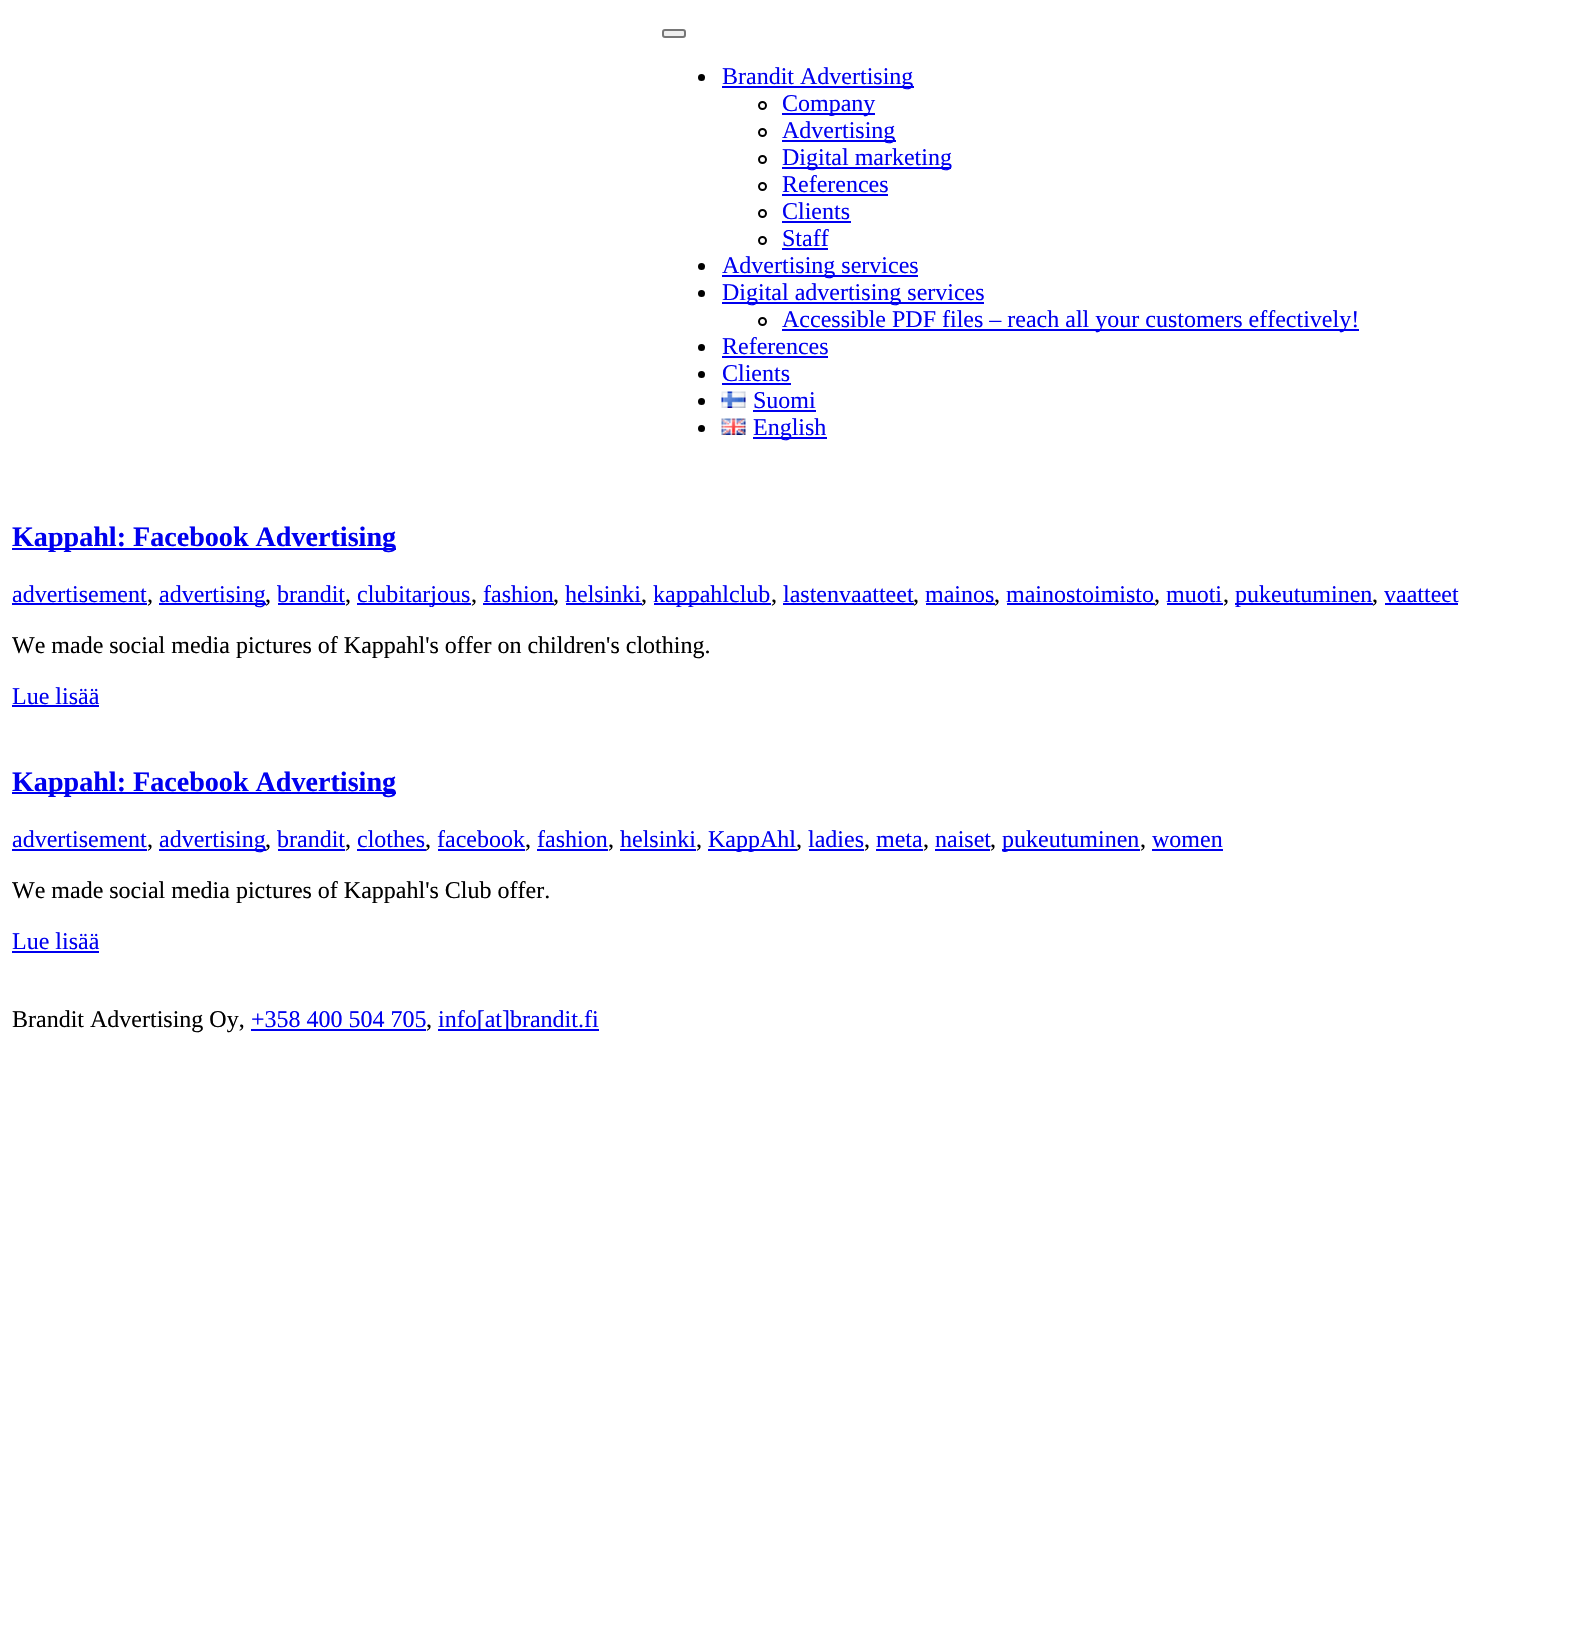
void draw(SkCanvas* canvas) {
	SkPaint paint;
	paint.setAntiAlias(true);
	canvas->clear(0xffffffff);
	paint.setColor(0xffefefef);
	canvas->drawRoundRect(SkRect::MakeXYWH(663, 30, 22, 7), 2, 2, paint);
	paint.setStroke(true);
	paint.setStrokeWidth(2);
	paint.setColor(0xff767676);
	canvas->drawRoundRect(SkRect::MakeXYWH(663, 30, 22, 7), 2, 2, paint);
	paint.setStroke(false);
	paint.setColor(0xff000000);
	canvas->drawCircle(701.5, 77.5, 3.5, paint);
	paint.setColor(0xff0000ee);
	canvas->drawRect(SkRect::MakeXYWH(722, 86, 192, 2), paint);
	SkFont f1(fontMgr->matchFamilyStyle("Liberation Serif", SkFontStyle::Normal()), 24);
	f1.setSubpixel(true);
	canvas->drawString("Brandit Advertising", 722, 84, f1, paint);
	paint.setStroke(true);
	paint.setColor(0xff000000);
	canvas->drawCircle(762.5, 105.5, 3.5, paint);
	paint.setStroke(false);
	paint.setColor(0xff0000ee);
	canvas->drawRect(SkRect::MakeXYWH(782, 113, 93, 2), paint);
	canvas->drawString("Company", 782, 111, f1, paint);
	paint.setStroke(true);
	paint.setColor(0xff000000);
	canvas->drawCircle(762.5, 132.5, 3.5, paint);
	paint.setStroke(false);
	paint.setColor(0xff0000ee);
	canvas->drawRect(SkRect::MakeXYWH(782, 140, 114, 2), paint);
	canvas->drawString("Advertising", 782, 138, f1, paint);
	paint.setStroke(true);
	paint.setColor(0xff000000);
	canvas->drawCircle(762.5, 159.5, 3.5, paint);
	paint.setStroke(false);
	paint.setColor(0xff0000ee);
	canvas->drawRect(SkRect::MakeXYWH(782, 167, 169, 2), paint);
	canvas->drawString("Digital marketing", 782, 165, f1, paint);
	paint.setStroke(true);
	paint.setColor(0xff000000);
	canvas->drawCircle(762.5, 186.5, 3.5, paint);
	paint.setStroke(false);
	paint.setColor(0xff0000ee);
	canvas->drawString("References", 782, 192, f1, paint);
	canvas->drawRect(SkRect::MakeXYWH(782, 194, 106, 2), paint);
	paint.setStroke(true);
	paint.setColor(0xff000000);
	canvas->drawCircle(762.5, 213.5, 3.5, paint);
	paint.setStroke(false);
	paint.setColor(0xff0000ee);
	canvas->drawString("Clients", 782, 219, f1, paint);
	canvas->drawRect(SkRect::MakeXYWH(782, 221, 69, 2), paint);
	paint.setStroke(true);
	paint.setColor(0xff000000);
	canvas->drawCircle(762.5, 240.5, 3.5, paint);
	paint.setStroke(false);
	paint.setColor(0xff0000ee);
	canvas->drawString("Staff", 782, 246, f1, paint);
	canvas->drawRect(SkRect::MakeXYWH(782, 248, 46, 2), paint);
	paint.setColor(0xff000000);
	canvas->drawCircle(701.5, 266.5, 3.5, paint);
	paint.setColor(0xff0000ee);
	canvas->drawRect(SkRect::MakeXYWH(722, 275, 196, 2), paint);
	canvas->drawString("Advertising services", 722, 273, f1, paint);
	paint.setColor(0xff000000);
	canvas->drawCircle(701.5, 293.5, 3.5, paint);
	paint.setColor(0xff0000ee);
	canvas->drawRect(SkRect::MakeXYWH(722, 302, 262, 2), paint);
	canvas->drawString("Digital advertising services", 722, 300, f1, paint);
	paint.setStroke(true);
	paint.setColor(0xff000000);
	canvas->drawCircle(762.5, 321.5, 3.5, paint);
	paint.setStroke(false);
	paint.setColor(0xff0000ee);
	canvas->drawRect(SkRect::MakeXYWH(782, 329, 577, 2), paint);
	canvas->drawString("Accessible PDF files – reach all your customers effectively!", 782, 327, f1, paint);
	paint.setColor(0xff000000);
	canvas->drawCircle(701.5, 347.5, 3.5, paint);
	paint.setColor(0xff0000ee);
	canvas->drawString("References", 722, 354, f1, paint);
	canvas->drawRect(SkRect::MakeXYWH(722, 356, 106, 2), paint);
	paint.setColor(0xff000000);
	canvas->drawCircle(701.5, 374.5, 3.5, paint);
	paint.setColor(0xff0000ee);
	canvas->drawString("Clients", 722, 381, f1, paint);
	canvas->drawRect(SkRect::MakeXYWH(722, 383, 69, 2), paint);
	paint.setColor(0xff000000);
	canvas->drawCircle(701.5, 401.5, 3.5, paint);
	canvas->drawImageRect(SkImages::DeferredFromEncodedData(SkData::MakeFromFileName("img1.png")), SkRect::MakeXYWH(721, 391, 25, 17), SkSamplingOptions());
	paint.setColor(0xff0000ee);
	canvas->drawString("Suomi", 753, 408, f1, paint);
	canvas->drawRect(SkRect::MakeXYWH(753, 410, 63, 2), paint);
	paint.setColor(0xff000000);
	canvas->drawCircle(701.5, 428.5, 3.5, paint);
	canvas->drawImageRect(SkImages::DeferredFromEncodedData(SkData::MakeFromFileName("img2.png")), SkRect::MakeXYWH(721, 418, 25, 17), SkSamplingOptions());
	paint.setColor(0xff0000ee);
	canvas->drawRect(SkRect::MakeXYWH(753, 437, 74, 2), paint);
	canvas->drawString("English", 753, 435, f1, paint);
	canvas->drawRect(SkRect::MakeXYWH(12, 548, 384, 2), paint);
	SkFont f2(fontMgr->matchFamilyStyle("Liberation Serif", SkFontStyle::Bold()), 28.1);
	f2.setSubpixel(true);
	canvas->drawString("Kappahl: Facebook Advertising", 12, 546, f2, paint);
	canvas->drawString("advertisement", 12, 602, f1, paint);
	paint.setColor(0xff000000);
	canvas->drawString(",", 147, 602, f1, paint);
	paint.setColor(0xff0000ee);
	canvas->drawRect(SkRect::MakeXYWH(12, 603, 135, 2), paint);
	canvas->drawRect(SkRect::MakeXYWH(159, 603, 107, 2), paint);
	canvas->drawString("advertising", 159, 602, f1, paint);
	paint.setColor(0xff000000);
	canvas->drawString(",", 265, 602, f1, paint);
	paint.setColor(0xff0000ee);
	canvas->drawString("brandit", 277, 602, f1, paint);
	paint.setColor(0xff000000);
	canvas->drawString(",", 345, 602, f1, paint);
	paint.setColor(0xff0000ee);
	canvas->drawRect(SkRect::MakeXYWH(278, 603, 67, 2), paint);
	canvas->drawRect(SkRect::MakeXYWH(357, 603, 114, 2), paint);
	canvas->drawString("clubitarjous", 357, 602, f1, paint);
	paint.setColor(0xff000000);
	canvas->drawString(",", 471, 602, f1, paint);
	paint.setColor(0xff0000ee);
	canvas->drawString("fashion", 483, 602, f1, paint);
	paint.setColor(0xff000000);
	canvas->drawString(",", 553, 602, f1, paint);
	paint.setColor(0xff0000ee);
	canvas->drawRect(SkRect::MakeXYWH(483, 603, 71, 2), paint);
	canvas->drawString("helsinki", 565, 602, f1, paint);
	paint.setColor(0xff000000);
	canvas->drawString(",", 641, 602, f1, paint);
	paint.setColor(0xff0000ee);
	canvas->drawRect(SkRect::MakeXYWH(566, 603, 76, 2), paint);
	canvas->drawRect(SkRect::MakeXYWH(654, 603, 117, 2), paint);
	canvas->drawString("kappahlclub", 653, 602, f1, paint);
	paint.setColor(0xff000000);
	canvas->drawString(",", 771, 602, f1, paint);
	paint.setColor(0xff0000ee);
	canvas->drawString("lastenvaatteet", 783, 602, f1, paint);
	paint.setColor(0xff000000);
	canvas->drawString(",", 913, 602, f1, paint);
	paint.setColor(0xff0000ee);
	canvas->drawRect(SkRect::MakeXYWH(783, 603, 131, 2), paint);
	canvas->drawString("mainos", 925, 602, f1, paint);
	paint.setColor(0xff000000);
	canvas->drawString(",", 994, 602, f1, paint);
	paint.setColor(0xff0000ee);
	canvas->drawRect(SkRect::MakeXYWH(926, 603, 69, 2), paint);
	canvas->drawString("mainostoimisto", 1006, 602, f1, paint);
	paint.setColor(0xff000000);
	canvas->drawString(",", 1154, 602, f1, paint);
	paint.setColor(0xff0000ee);
	canvas->drawRect(SkRect::MakeXYWH(1007, 603, 148, 2), paint);
	canvas->drawString("muoti", 1166, 602, f1, paint);
	paint.setColor(0xff000000);
	canvas->drawString(",", 1223, 602, f1, paint);
	paint.setColor(0xff0000ee);
	canvas->drawRect(SkRect::MakeXYWH(1167, 603, 56, 2), paint);
	canvas->drawRect(SkRect::MakeXYWH(1235, 603, 138, 2), paint);
	canvas->drawString("pukeutuminen", 1235, 602, f1, paint);
	paint.setColor(0xff000000);
	canvas->drawString(",", 1372, 602, f1, paint);
	paint.setColor(0xff0000ee);
	canvas->drawRect(SkRect::MakeXYWH(1385, 603, 73, 2), paint);
	canvas->drawString("vaatteet", 1384, 602, f1, paint);
	paint.setColor(0xff000000);
	canvas->drawString("We made social media pictures of Kappahl's offer on children's clothing.", 12, 653, f1, paint);
	paint.setColor(0xff0000ee);
	canvas->drawString("Lue lisää", 12, 704, f1, paint);
	canvas->drawRect(SkRect::MakeXYWH(12, 705, 87, 2), paint);
	canvas->drawRect(SkRect::MakeXYWH(12, 792, 384, 2), paint);
	canvas->drawString("Kappahl: Facebook Advertising", 12, 791, f2, paint);
	canvas->drawString("advertisement", 12, 847, f1, paint);
	paint.setColor(0xff000000);
	canvas->drawString(",", 147, 847, f1, paint);
	paint.setColor(0xff0000ee);
	canvas->drawRect(SkRect::MakeXYWH(12, 849, 135, 2), paint);
	canvas->drawRect(SkRect::MakeXYWH(159, 849, 107, 2), paint);
	canvas->drawString("advertising", 159, 847, f1, paint);
	paint.setColor(0xff000000);
	canvas->drawString(",", 265, 847, f1, paint);
	paint.setColor(0xff0000ee);
	canvas->drawString("brandit", 277, 847, f1, paint);
	paint.setColor(0xff000000);
	canvas->drawString(",", 345, 847, f1, paint);
	paint.setColor(0xff0000ee);
	canvas->drawRect(SkRect::MakeXYWH(278, 849, 67, 2), paint);
	canvas->drawString("clothes", 357, 847, f1, paint);
	paint.setColor(0xff000000);
	canvas->drawString(",", 425, 847, f1, paint);
	paint.setColor(0xff0000ee);
	canvas->drawRect(SkRect::MakeXYWH(357, 849, 69, 2), paint);
	canvas->drawString("facebook", 437, 847, f1, paint);
	paint.setColor(0xff000000);
	canvas->drawString(",", 525, 847, f1, paint);
	paint.setColor(0xff0000ee);
	canvas->drawRect(SkRect::MakeXYWH(438, 849, 87, 2), paint);
	canvas->drawString("fashion", 537, 847, f1, paint);
	paint.setColor(0xff000000);
	canvas->drawString(",", 608, 847, f1, paint);
	paint.setColor(0xff0000ee);
	canvas->drawRect(SkRect::MakeXYWH(537, 849, 71, 2), paint);
	canvas->drawString("helsinki", 620, 847, f1, paint);
	paint.setColor(0xff000000);
	canvas->drawString(",", 696, 847, f1, paint);
	paint.setColor(0xff0000ee);
	canvas->drawRect(SkRect::MakeXYWH(620, 849, 76, 2), paint);
	canvas->drawRect(SkRect::MakeXYWH(708, 849, 89, 2), paint);
	canvas->drawString("KappAhl", 708, 847, f1, paint);
	paint.setColor(0xff000000);
	canvas->drawString(",", 796, 847, f1, paint);
	paint.setColor(0xff0000ee);
	canvas->drawString("ladies", 808, 847, f1, paint);
	paint.setColor(0xff000000);
	canvas->drawString(",", 864, 847, f1, paint);
	paint.setColor(0xff0000ee);
	canvas->drawRect(SkRect::MakeXYWH(809, 849, 55, 2), paint);
	canvas->drawString("meta", 876, 847, f1, paint);
	paint.setColor(0xff000000);
	canvas->drawString(",", 923, 847, f1, paint);
	paint.setColor(0xff0000ee);
	canvas->drawRect(SkRect::MakeXYWH(876, 849, 47, 2), paint);
	canvas->drawString("naiset", 935, 847, f1, paint);
	paint.setColor(0xff000000);
	canvas->drawString(",", 990, 847, f1, paint);
	paint.setColor(0xff0000ee);
	canvas->drawRect(SkRect::MakeXYWH(935, 849, 55, 2), paint);
	canvas->drawRect(SkRect::MakeXYWH(1002, 849, 138, 2), paint);
	canvas->drawString("pukeutuminen", 1002, 847, f1, paint);
	paint.setColor(0xff000000);
	canvas->drawString(",", 1140, 847, f1, paint);
	paint.setColor(0xff0000ee);
	canvas->drawRect(SkRect::MakeXYWH(1152, 849, 71, 2), paint);
	canvas->drawString("women", 1152, 847, f1, paint);
	paint.setColor(0xff000000);
	canvas->drawString("We made social media pictures of Kappahl's Club offer.", 12, 898, f1, paint);
	paint.setColor(0xff0000ee);
	canvas->drawString("Lue lisää", 12, 949, f1, paint);
	canvas->drawRect(SkRect::MakeXYWH(12, 951, 87, 2), paint);
	paint.setColor(0xff000000);
	canvas->drawString("Brandit Advertising Oy,", 12, 1027, f1, paint);
	paint.setColor(0xff0000ee);
	canvas->drawString("+358 400 504 705", 251, 1027, f1, paint);
	paint.setColor(0xff000000);
	canvas->drawString(",", 426, 1027, f1, paint);
	paint.setColor(0xff0000ee);
	canvas->drawRect(SkRect::MakeXYWH(251, 1029, 175, 2), paint);
	canvas->drawRect(SkRect::MakeXYWH(438, 1029, 161, 2), paint);
	canvas->drawString("info[at]brandit.fi", 438, 1027, f1, paint);
}
